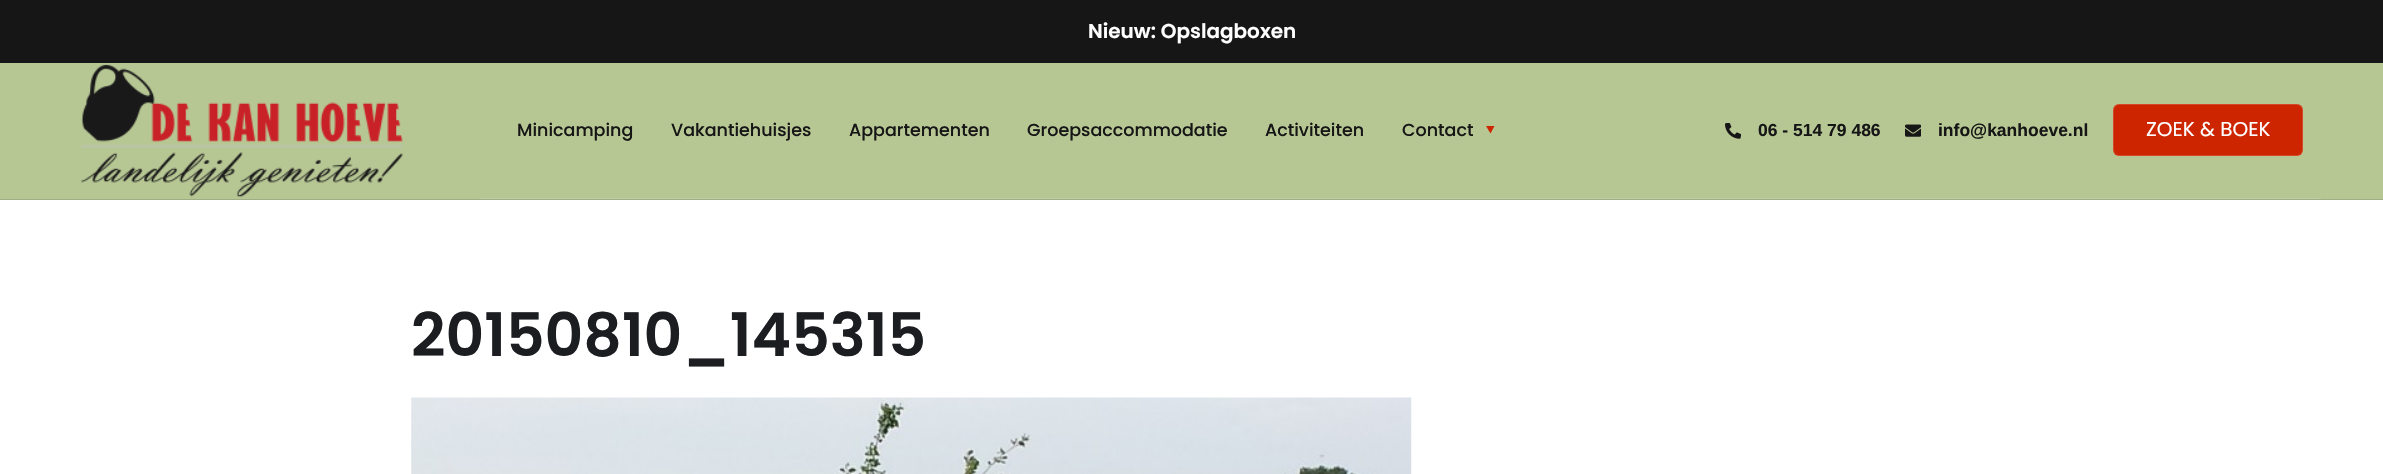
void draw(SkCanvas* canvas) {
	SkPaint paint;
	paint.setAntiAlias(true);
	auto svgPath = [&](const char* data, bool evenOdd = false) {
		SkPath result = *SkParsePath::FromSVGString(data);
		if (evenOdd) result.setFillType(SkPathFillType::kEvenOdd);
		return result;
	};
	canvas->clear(0xffffffff);
	paint.setColor(0xff161616);
	canvas->drawRect(SkRect::MakeXYWH(0, 0, 2383, 63), paint);
	SkFont f1(fontMgr->matchFamilyStyle("Poppins", SkFontStyle(600, SkFontStyle::kNormal_Width, SkFontStyle::kUpright_Slant)), 20);
	f1.setSubpixel(true);
	paint.setColor(0xffffffff);
	canvas->drawString("Nieuw: Opslagboxen", 1088, 38, f1, paint);
	paint.setColor(0xffb7c794);
	canvas->drawRect(SkRect::MakeXYWH(0, 63, 2383, 136), paint);
	paint.setColor(0xff9fae86);
	canvas->drawRect(SkRect::MakeXYWH(0, 199, 2383, 1), paint);
	canvas->drawImageRect(SkImages::DeferredFromEncodedData(SkData::MakeFromFileName("img1.png")), SkRect::MakeXYWH(81, 64, 322, 133), SkSamplingOptions());
	paint.setColor(0xffc0cea1);
	canvas->drawRect(SkRect::MakeXYWH(480, 198, 1841, 1), paint);
	SkFont f2(fontMgr->matchFamilyStyle("Poppins", SkFontStyle(500, SkFontStyle::kNormal_Width, SkFontStyle::kUpright_Slant)), 17.5);
	f2.setSubpixel(true);
	paint.setColor(0xff161616);
	canvas->drawString("Minicamping", 517, 136, f2, paint);
	canvas->drawString("Vakantiehuisjes", 671, 136, f2, paint);
	canvas->drawString("Appartementen", 849, 136, f2, paint);
	canvas->drawString("Groepsaccommodatie", 1027, 136, f2, paint);
	canvas->drawString("Activiteiten", 1265, 136, f2, paint);
	canvas->drawString("Contact", 1402, 136, f2, paint);
	paint.setColor(0xffcc2500);
	canvas->drawPath(svgPath("M1490.5 133.5L1486 126H1494.5Z"), paint);
	canvas->drawImageRect(SkImages::DeferredFromEncodedData(SkData::MakeFromFileName("img2.png")), SkRect::MakeXYWH(1725, 123, 16, 16), SkSamplingOptions());
	SkFont f3(fontMgr->matchFamilyStyle("Liberation Sans", SkFontStyle::Bold()), 17.5);
	f3.setSubpixel(true);
	paint.setColor(0xff161616);
	canvas->drawString("06 - 514 79 486", 1758, 136, f3, paint);
	canvas->drawImageRect(SkImages::DeferredFromEncodedData(SkData::MakeFromFileName("img3.png")), SkRect::MakeXYWH(1905, 124, 16, 13), SkSamplingOptions());
	canvas->drawString("info@kanhoeve.nl", 1938, 136, f3, paint);
	paint.setColor(0xffcc2500);
	canvas->drawRoundRect(SkRect::MakeXYWH(2113, 104, 190, 52), 6, 6, paint);
	paint.setStroke(true);
	paint.setStrokeWidth(1);
	paint.setColor(0x29ffffff);
	canvas->drawRoundRect(SkRect::MakeXYWH(2113.5, 104.5, 189, 51), 5.5, 5.5, paint);
	SkFont f4(fontMgr->matchFamilyStyle("Poppins", SkFontStyle::Normal()), 20);
	f4.setSubpixel(true);
	paint.setStroke(false);
	paint.setColor(0xffffffff);
	canvas->drawString("ZOEK & BOEK", 2146, 136, f4, paint);
	SkFont f5(fontMgr->matchFamilyStyle("Poppins", SkFontStyle(600, SkFontStyle::kNormal_Width, SkFontStyle::kUpright_Slant)), 60);
	f5.setSubpixel(true);
	paint.setColor(0xff1b1d21);
	canvas->drawString("20150810_145315", 411, 356, f5, paint);
	canvas->drawImageRect(SkImages::DeferredFromEncodedData(SkData::MakeFromFileName("img4.png")), SkRect::MakeXYWH(411, 397, 1001, 77), SkSamplingOptions());
}
